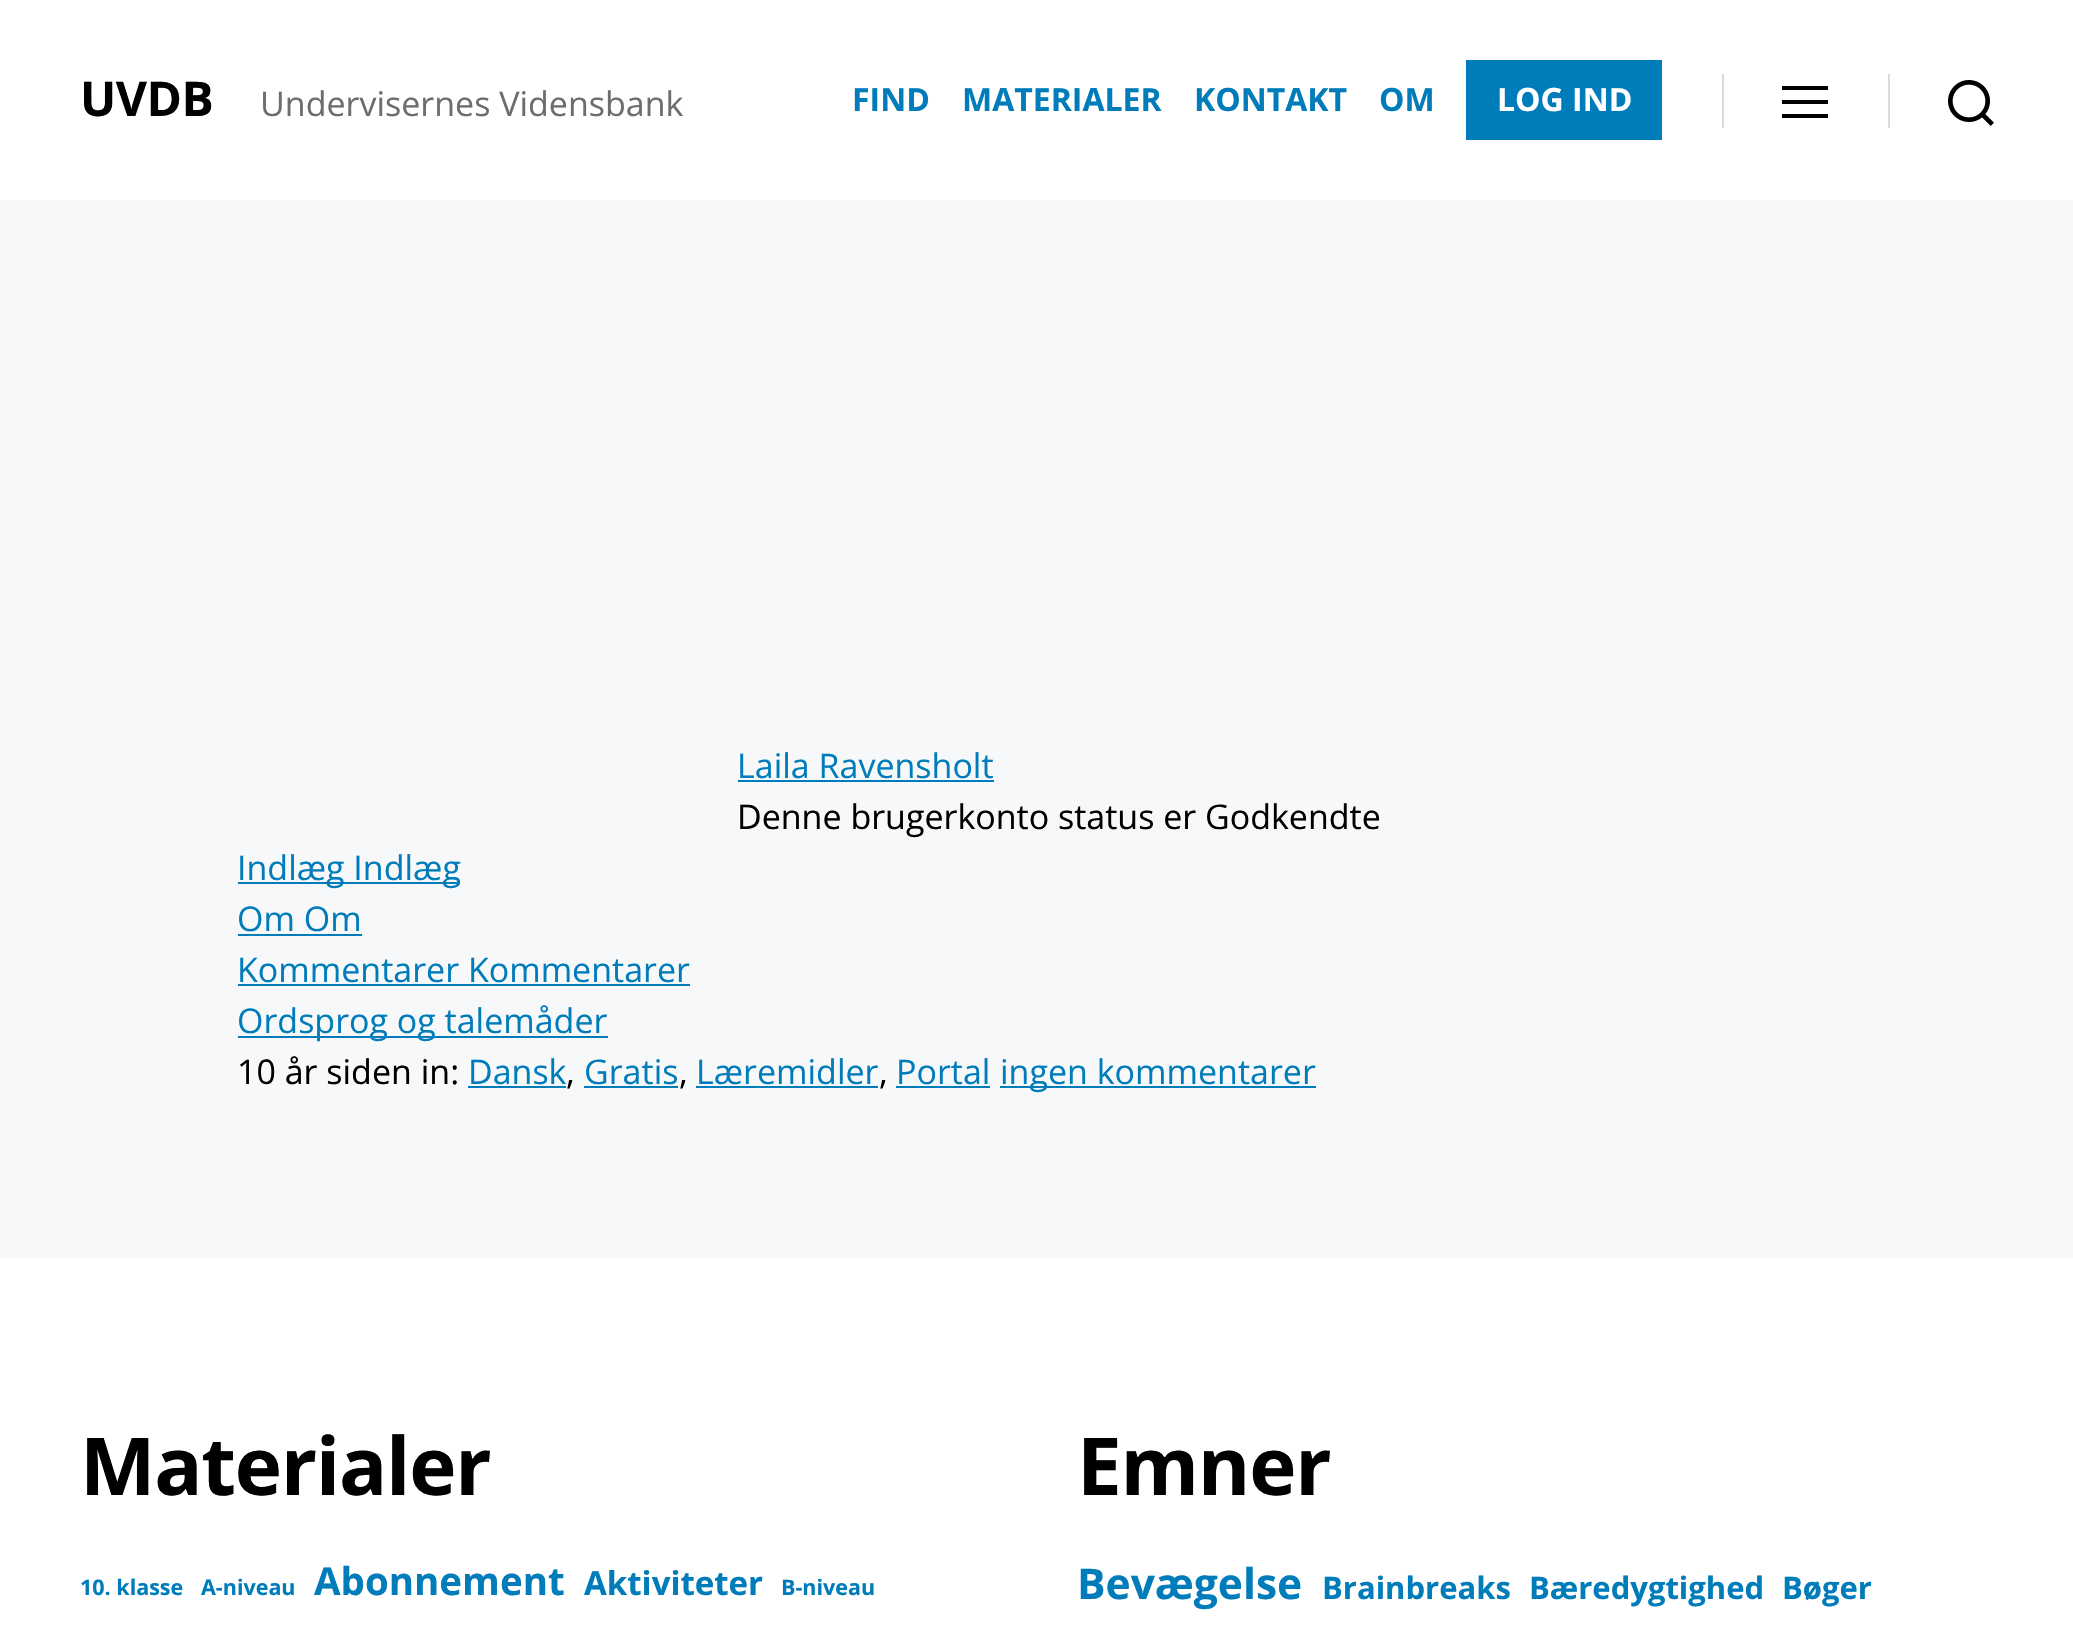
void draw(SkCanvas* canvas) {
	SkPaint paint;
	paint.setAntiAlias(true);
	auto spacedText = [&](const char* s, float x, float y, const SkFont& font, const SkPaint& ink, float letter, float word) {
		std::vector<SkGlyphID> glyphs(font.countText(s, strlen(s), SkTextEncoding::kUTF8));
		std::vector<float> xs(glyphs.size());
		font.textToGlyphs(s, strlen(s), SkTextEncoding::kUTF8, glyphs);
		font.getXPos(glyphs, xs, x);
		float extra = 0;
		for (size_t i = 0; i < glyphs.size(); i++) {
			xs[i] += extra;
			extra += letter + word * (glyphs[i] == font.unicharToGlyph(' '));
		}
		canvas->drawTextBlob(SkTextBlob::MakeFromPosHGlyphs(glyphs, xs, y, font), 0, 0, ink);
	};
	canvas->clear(0xfff7f8fa);
	paint.setColor(0xffffffff);
	canvas->drawRect(SkRect::MakeXYWH(0, 0, 2073, 200), paint);
	SkFont f1(fontMgr->matchFamilyStyle("Open Sans", SkFontStyle::Bold()), 48);
	f1.setSubpixel(true);
	paint.setColor(0xff000000);
	spacedText("UVDB", 80, 116, f1, paint, -0.5, 0);
	SkFont f2(fontMgr->matchFamilyStyle("Open Sans", SkFontStyle::Normal()), 34);
	f2.setSubpixel(true);
	paint.setColor(0xff6d6d6d);
	canvas->drawString("Undervisernes Vidensbank", 260, 116, f2, paint);
	SkFont f3(fontMgr->matchFamilyStyle("Open Sans", SkFontStyle::Bold()), 32);
	f3.setSubpixel(true);
	paint.setColor(0xff007cba);
	canvas->drawString("FIND", 852, 111, f3, paint);
	canvas->drawString("MATERIALER", 962, 111, f3, paint);
	canvas->drawString("KONTAKT", 1194, 111, f3, paint);
	canvas->drawString("OM", 1379, 111, f3, paint);
	canvas->drawRect(SkRect::MakeXYWH(1466, 60, 196, 80), paint);
	paint.setColor(0xffffffff);
	canvas->drawString("LOG IND", 1497, 111, f3, paint);
	paint.setColor(0xffdbdbdb);
	canvas->drawRect(SkRect::MakeXYWH(1722, 74, 2, 54), paint);
	paint.setColor(0xff000000);
	canvas->drawRect(SkRect::MakeXYWH(1782, 86, 46, 4), paint);
	canvas->drawRect(SkRect::MakeXYWH(1782, 114, 46, 4), paint);
	canvas->drawRect(SkRect::MakeXYWH(1782, 100, 46, 4), paint);
	paint.setColor(0xffdbdbdb);
	canvas->drawRect(SkRect::MakeXYWH(1888, 74, 2, 54), paint);
	canvas->drawImageRect(SkImages::DeferredFromEncodedData(SkData::MakeFromFileName("img1.png")), SkRect::MakeXYWH(1948, 80, 46, 46), SkSamplingOptions());
	paint.setColor(0xff007cba);
	canvas->drawString("Laila Ravensholt", 737, 778, f2, paint);
	canvas->drawRect(SkRect::MakeXYWH(738, 780, 256, 2), paint);
	paint.setColor(0xff000000);
	canvas->drawString("Denne brugerkonto status er Godkendte", 737, 829, f2, paint);
	paint.setColor(0xff007cba);
	canvas->drawRect(SkRect::MakeXYWH(238, 882, 222, 2), paint);
	canvas->drawString("Indlæg Indlæg", 237, 880, f2, paint);
	canvas->drawString("Om Om", 237, 931, f2, paint);
	canvas->drawRect(SkRect::MakeXYWH(238, 934, 124, 2), paint);
	canvas->drawString("Kommentarer Kommentarer", 237, 982, f2, paint);
	canvas->drawRect(SkRect::MakeXYWH(238, 984, 452, 2), paint);
	canvas->drawRect(SkRect::MakeXYWH(238, 1036, 370, 2), paint);
	canvas->drawString("Ordsprog og talemåder", 237, 1033, f2, paint);
	paint.setColor(0xff000000);
	canvas->drawString("10 år siden in:", 237, 1084, f2, paint);
	paint.setColor(0xff007cba);
	canvas->drawString("Dansk", 468, 1084, f2, paint);
	paint.setColor(0xff000000);
	canvas->drawString(",", 566, 1084, f2, paint);
	paint.setColor(0xff007cba);
	canvas->drawRect(SkRect::MakeXYWH(468, 1086, 98, 2), paint);
	canvas->drawString("Gratis", 584, 1084, f2, paint);
	paint.setColor(0xff000000);
	canvas->drawString(",", 679, 1084, f2, paint);
	paint.setColor(0xff007cba);
	canvas->drawRect(SkRect::MakeXYWH(584, 1086, 94, 2), paint);
	canvas->drawString("Læremidler", 696, 1084, f2, paint);
	paint.setColor(0xff000000);
	canvas->drawString(",", 879, 1084, f2, paint);
	paint.setColor(0xff007cba);
	canvas->drawRect(SkRect::MakeXYWH(696, 1086, 182, 2), paint);
	canvas->drawRect(SkRect::MakeXYWH(896, 1086, 94, 2), paint);
	canvas->drawString("Portal", 896, 1084, f2, paint);
	canvas->drawRect(SkRect::MakeXYWH(1000, 1086, 316, 2), paint);
	canvas->drawString("ingen kommentarer", 1000, 1084, f2, paint);
	paint.setColor(0xffffffff);
	canvas->drawRect(SkRect::MakeXYWH(0, 1258, 2073, 383), paint);
	SkFont f4(fontMgr->matchFamilyStyle("Open Sans", SkFontStyle::Bold()), 80);
	f4.setSubpixel(true);
	paint.setColor(0xff000000);
	spacedText("Materialer", 80, 1495, f4, paint, -1.25, 0);
	SkFont f5(fontMgr->matchFamilyStyle("Open Sans", SkFontStyle::Bold()), 21.5);
	f5.setSubpixel(true);
	paint.setColor(0xff007cba);
	canvas->drawString("10. klasse", 80, 1595, f5, paint);
	canvas->drawString("A-niveau", 201, 1595, f5, paint);
	SkFont f6(fontMgr->matchFamilyStyle("Open Sans", SkFontStyle::Bold()), 38.5);
	f6.setSubpixel(true);
	canvas->drawString("Abonnement", 314, 1595, f6, paint);
	SkFont f7(fontMgr->matchFamilyStyle("Open Sans", SkFontStyle::Bold()), 33);
	f7.setSubpixel(true);
	canvas->drawString("Aktiviteter", 584, 1595, f7, paint);
	canvas->drawString("B-niveau", 781, 1595, f5, paint);
	paint.setColor(0xff000000);
	spacedText("Emner", 1077, 1495, f4, paint, -1.25, 0);
	SkFont f8(fontMgr->matchFamilyStyle("Open Sans", SkFontStyle::Bold()), 42.5);
	f8.setSubpixel(true);
	paint.setColor(0xff007cba);
	canvas->drawString("Bevægelse", 1077, 1599, f8, paint);
	SkFont f9(fontMgr->matchFamilyStyle("Open Sans", SkFontStyle::Bold()), 31);
	f9.setSubpixel(true);
	canvas->drawString("Brainbreaks", 1322, 1599, f9, paint);
	canvas->drawString("Bæredygtighed", 1529, 1599, f9, paint);
	canvas->drawString("Bøger", 1782, 1599, f9, paint);
}
